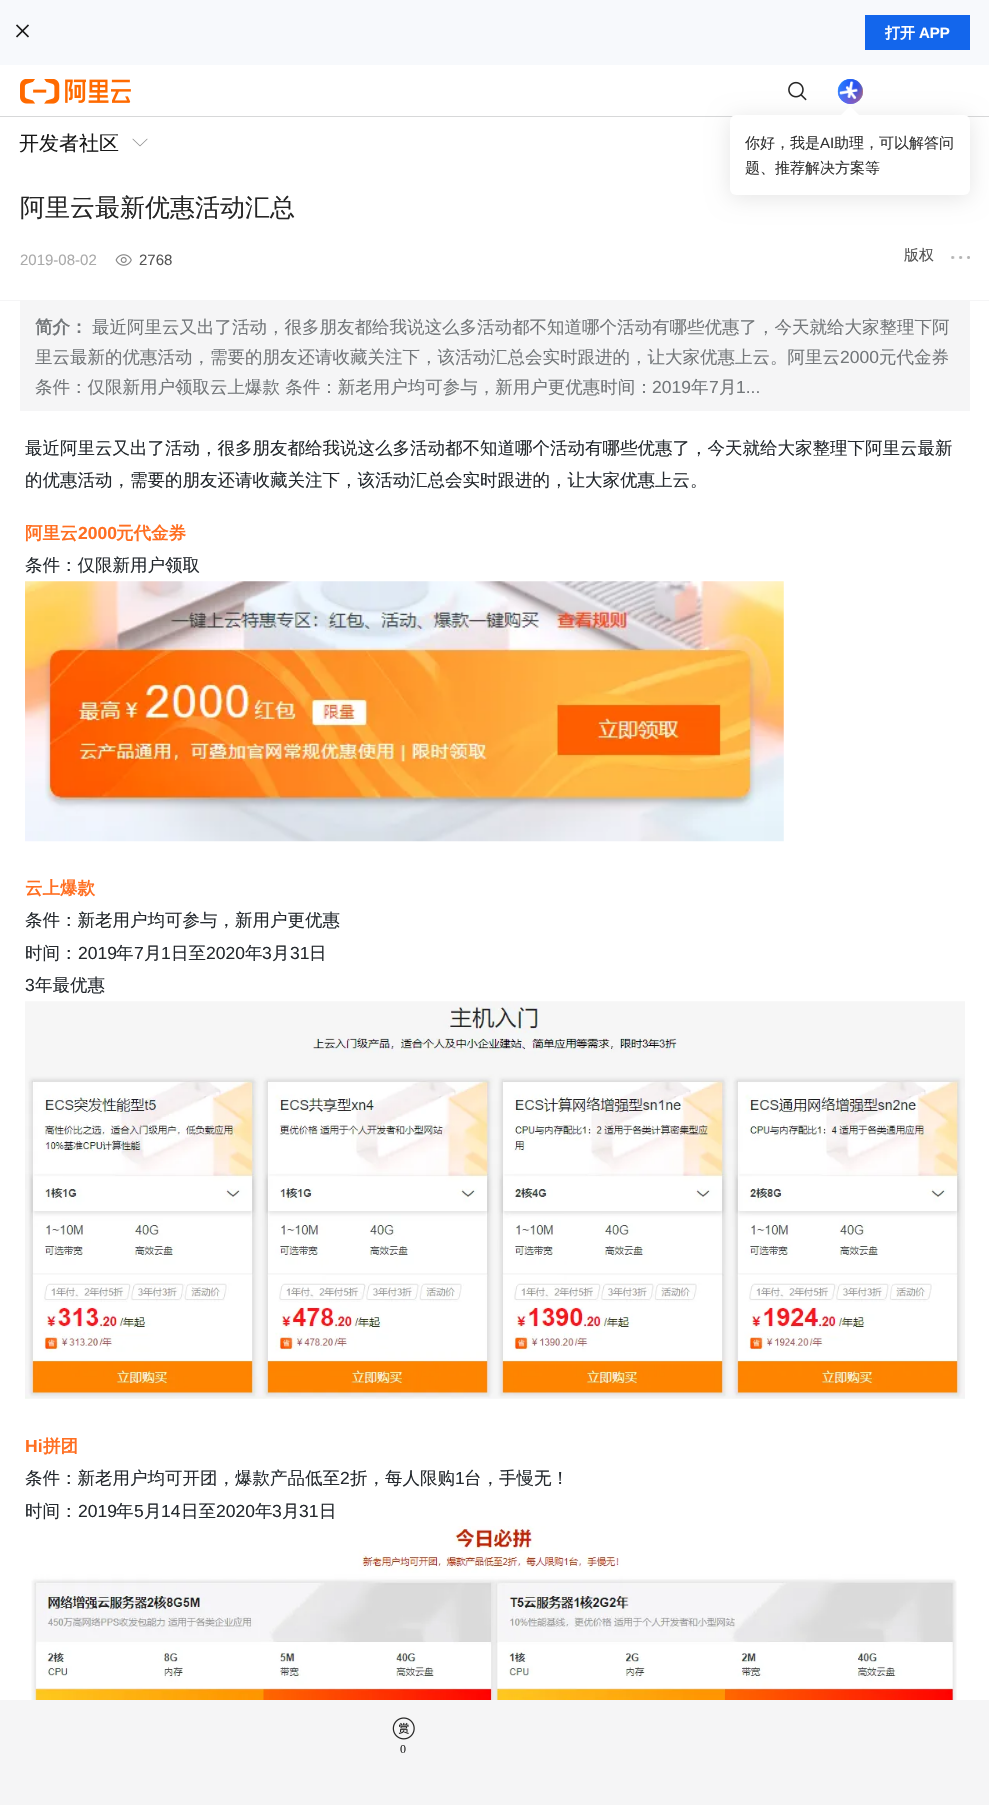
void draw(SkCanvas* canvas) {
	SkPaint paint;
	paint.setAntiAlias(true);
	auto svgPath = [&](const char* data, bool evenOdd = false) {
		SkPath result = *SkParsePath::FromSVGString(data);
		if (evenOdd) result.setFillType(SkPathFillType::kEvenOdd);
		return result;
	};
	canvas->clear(0xffffffff);
	SkFont f1(fontMgr->matchFamilyStyle("WenQuanYi Zen Hei", SkFontStyle(500, SkFontStyle::kNormal_Width, SkFontStyle::kUpright_Slant)), 20);
	f1.setSubpixel(true);
	paint.setColor(0xff181818);
	canvas->drawString("开发者社区", 19, 150, f1, paint);
	canvas->drawImageRect(SkImages::DeferredFromEncodedData(SkData::MakeFromFileName("img1.png")), SkRect::MakeXYWH(132, 138, 16, 9), SkSamplingOptions());
	paint.setColor(0xfff7f9fc);
	canvas->drawRect(SkRect::MakeXYWH(0, 0, 989, 65), paint);
	canvas->drawImageRect(SkImages::DeferredFromEncodedData(SkData::MakeFromFileName("img2.png")), SkRect::MakeXYWH(16, 24, 13, 14), SkSamplingOptions());
	paint.setColor(0xff1366ec);
	canvas->drawRect(SkRect::MakeXYWH(865, 15, 105, 35), paint);
	SkFont f2(fontMgr->matchFamilyStyle("WenQuanYi Zen Hei", SkFontStyle::Bold()), 15);
	f2.setSubpixel(true);
	paint.setColor(0xffffffff);
	canvas->drawString("打开", 885, 38, f2, paint);
	SkFont f3(fontMgr->matchFamilyStyle("Liberation Sans", SkFontStyle::Bold()), 15);
	f3.setSubpixel(true);
	canvas->drawString("APP", 919, 38, f3, paint);
	paint.setColor(0xffd7d8d9);
	canvas->drawRect(SkRect::MakeXYWH(0, 116, 989, 1), paint);
	canvas->drawImageRect(SkImages::DeferredFromEncodedData(SkData::MakeFromFileName("img3.png")), SkRect::MakeXYWH(20, 79, 111, 25), SkSamplingOptions());
	canvas->drawImageRect(SkImages::DeferredFromEncodedData(SkData::MakeFromFileName("img4.png")), SkRect::MakeXYWH(788, 81, 19, 20), SkSamplingOptions());
	paint.setColor(0xff25a5ff);
	canvas->drawCircle(850.5, 91.5, 12.5, paint);
	{
		const SkColor colors[] = {0xff7b47ff, 0x007b47ff};
		const float stops[] = {0.05, 0.8};
		paint.setShader(SkGradientShader::MakeRadial({850, 98}, 23, colors, stops, 2, SkTileMode::kClamp));
		paint.setAlpha(255);
	}
	canvas->drawCircle(850.5, 91.5, 12.5, paint);
	{
		const SkColor colors[] = {0xffff6432, 0x00ff6432};
		const float stops[] = {0.05, 0.7};
		paint.setShader(SkGradientShader::MakeRadial({856, 91}, 23, colors, stops, 2, SkTileMode::kClamp));
		paint.setAlpha(255);
	}
	canvas->drawCircle(850.5, 91.5, 12.5, paint);
	{
		const SkColor colors[] = {0xff1548ff, 0x001548ff};
		const float stops[] = {0.05, 0.6};
		paint.setShader(SkGradientShader::MakeRadial({850, 85}, 23, colors, stops, 2, SkTileMode::kClamp));
		paint.setAlpha(255);
	}
	canvas->drawCircle(850.5, 91.5, 12.5, paint);
	canvas->drawImageRect(SkImages::DeferredFromEncodedData(SkData::MakeFromFileName("img5.png")), SkRect::MakeXYWH(837, 79, 26, 25), SkSamplingOptions());
	canvas->drawImageRect(SkImages::DeferredFromEncodedData(SkData::MakeFromFileName("img6.png")), SkRect::MakeXYWH(839, 81, 19, 19), SkSamplingOptions());
	paint.setShader(nullptr);
	paint.setColor(0x1a000000);
	paint.setMaskFilter(SkMaskFilter::MakeBlur(kNormal_SkBlurStyle, 11));
	canvas->drawRoundRect(SkRect::MakeXYWH(730, 118, 240, 80), 6, 6, paint);
	paint.setMaskFilter(nullptr);
	paint.setColor(0xffffffff);
	canvas->drawRoundRect(SkRect::MakeXYWH(730, 115, 240, 80), 6, 6, paint);
	canvas->drawPath(svgPath("M850 106L859 115L850 124L841 115Z"), paint);
	SkFont f4(fontMgr->matchFamilyStyle("WenQuanYi Zen Hei", SkFontStyle(500, SkFontStyle::kNormal_Width, SkFontStyle::kUpright_Slant)), 15);
	f4.setSubpixel(true);
	paint.setColor(0xff333333);
	canvas->drawString("你好，我是", 745, 148, f4, paint);
	SkFont f5(fontMgr->matchFamilyStyle("Liberation Sans", SkFontStyle::Normal()), 15);
	f5.setSubpixel(true);
	canvas->drawString("AI", 820, 148, f5, paint);
	canvas->drawString("助理，可以解答问", 834, 148, f4, paint);
	canvas->drawString("题、推荐解决方案等", 745, 173, f4, paint);
	SkFont f6(fontMgr->matchFamilyStyle("WenQuanYi Zen Hei", SkFontStyle(500, SkFontStyle::kNormal_Width, SkFontStyle::kUpright_Slant)), 25);
	f6.setSubpixel(true);
	paint.setColor(0xff262626);
	canvas->drawString("阿里云最新优惠活动汇总", 20, 216, f6, paint);
	paint.setColor(0xfff5f5f6);
	canvas->drawRect(SkRect::MakeXYWH(0, 300, 989, 1), paint);
	paint.setColor(0xffaaaaaa);
	canvas->drawString("2019-08-02", 20, 265, f5, paint);
	canvas->drawImageRect(SkImages::DeferredFromEncodedData(SkData::MakeFromFileName("img7.png")), SkRect::MakeXYWH(115, 254, 17, 12), SkSamplingOptions());
	paint.setColor(0xff555555);
	canvas->drawString("2768", 139, 265, f5, paint);
	canvas->drawString("版权", 904, 260, f4, paint);
	canvas->drawImageRect(SkImages::DeferredFromEncodedData(SkData::MakeFromFileName("img8.png")), SkRect::MakeXYWH(951, 256, 19, 3), SkSamplingOptions());
	paint.setColor(0xfff5f5f6);
	canvas->drawRect(SkRect::MakeXYWH(20, 301, 950, 110), paint);
	SkFont f7(fontMgr->matchFamilyStyle("WenQuanYi Zen Hei", SkFontStyle::Bold()), 17.5);
	f7.setSubpixel(true);
	paint.setColor(0xff73777a);
	canvas->drawString("简介：", 35, 333, f7, paint);
	SkFont f8(fontMgr->matchFamilyStyle("WenQuanYi Zen Hei", SkFontStyle(500, SkFontStyle::kNormal_Width, SkFontStyle::kUpright_Slant)), 17.5);
	f8.setSubpixel(true);
	canvas->drawString("最近阿里云又出了活动，很多朋友都给我说这么多活动都不知道哪个活动有哪些优惠了，今天就给大家整理下阿", 92, 333, f8, paint);
	canvas->drawString("里云最新的优惠活动，需要的朋友还请收藏关注下，该活动汇总会实时跟进的，让大家优惠上云。阿里云", 35, 363, f8, paint);
	SkFont f9(fontMgr->matchFamilyStyle("Liberation Sans", SkFontStyle::Normal()), 17.5);
	f9.setSubpixel(true);
	canvas->drawString("2000", 840, 363, f9, paint);
	canvas->drawString("元代金券", 879, 363, f8, paint);
	canvas->drawString("条件：仅限新用户领取云上爆款 条件：新老用户均可参与，新用户更优惠时间：", 35, 393, f8, paint);
	canvas->drawString("2019", 652, 393, f9, paint);
	canvas->drawString("年", 691, 393, f8, paint);
	canvas->drawString("7", 709, 393, f9, paint);
	canvas->drawString("月", 719, 393, f8, paint);
	canvas->drawString("1...", 736, 393, f9, paint);
	paint.setColor(0xff24292e);
	canvas->drawString("最近阿里云又出了活动，很多朋友都给我说这么多活动都不知道哪个活动有哪些优惠了，今天就给大家整理下阿里云最新", 25, 454, f8, paint);
	canvas->drawString("的优惠活动，需要的朋友还请收藏关注下，该活动汇总会实时跟进的，让大家优惠上云。", 25, 486, f8, paint);
	paint.setColor(0xffff6f22);
	canvas->drawString("阿里云", 25, 539, f7, paint);
	SkFont f10(fontMgr->matchFamilyStyle("Liberation Sans", SkFontStyle::Bold()), 17.5);
	f10.setSubpixel(true);
	canvas->drawString("2000", 78, 539, f10, paint);
	canvas->drawString("元代金券", 116, 539, f7, paint);
	paint.setColor(0xff24292e);
	canvas->drawString("条件：仅限新用户领取", 25, 571, f8, paint);
	canvas->drawImageRect(SkImages::DeferredFromEncodedData(SkData::MakeFromFileName("img9.png")), SkRect::MakeXYWH(25, 581, 759, 261), SkSamplingOptions());
	paint.setColor(0xffff6f22);
	canvas->drawString("云上爆款", 25, 894, f7, paint);
	paint.setColor(0xff24292e);
	canvas->drawString("条件：新老用户均可参与，新用户更优惠", 25, 926, f8, paint);
	canvas->drawString("时间：", 25, 959, f8, paint);
	canvas->drawString("2019", 78, 959, f9, paint);
	canvas->drawString("年", 116, 959, f8, paint);
	canvas->drawString("7", 134, 959, f9, paint);
	canvas->drawString("月", 144, 959, f8, paint);
	canvas->drawString("1", 161, 959, f9, paint);
	canvas->drawString("日至", 171, 959, f8, paint);
	canvas->drawString("2020", 206, 959, f9, paint);
	canvas->drawString("年", 245, 959, f8, paint);
	canvas->drawString("3", 262, 959, f9, paint);
	canvas->drawString("月", 272, 959, f8, paint);
	canvas->drawString("31", 290, 959, f9, paint);
	canvas->drawString("日", 309, 959, f8, paint);
	canvas->drawString("3", 25, 991, f9, paint);
	canvas->drawString("年最优惠", 35, 991, f8, paint);
	canvas->drawImageRect(SkImages::DeferredFromEncodedData(SkData::MakeFromFileName("img10.png")), SkRect::MakeXYWH(25, 1001, 940, 398), SkSamplingOptions());
	paint.setColor(0xffff6f22);
	canvas->drawString("Hi", 25, 1452, f10, paint);
	canvas->drawString("拼团", 43, 1452, f7, paint);
	paint.setColor(0xff24292e);
	canvas->drawString("条件：新老用户均可开团，爆款产品低至", 25, 1484, f8, paint);
	canvas->drawString("2", 340, 1484, f9, paint);
	canvas->drawString("折，每人限购", 350, 1484, f8, paint);
	canvas->drawString("1", 455, 1484, f9, paint);
	canvas->drawString("台，手慢无！", 464, 1484, f8, paint);
	canvas->drawString("时间：", 25, 1517, f8, paint);
	canvas->drawString("2019", 78, 1517, f9, paint);
	canvas->drawString("年", 116, 1517, f8, paint);
	canvas->drawString("5", 134, 1517, f9, paint);
	canvas->drawString("月", 144, 1517, f8, paint);
	canvas->drawString("14", 161, 1517, f9, paint);
	canvas->drawString("日至", 181, 1517, f8, paint);
	canvas->drawString("2020", 216, 1517, f9, paint);
	canvas->drawString("年", 255, 1517, f8, paint);
	canvas->drawString("3", 272, 1517, f9, paint);
	canvas->drawString("月", 282, 1517, f8, paint);
	canvas->drawString("31", 299, 1517, f9, paint);
	canvas->drawString("日", 319, 1517, f8, paint);
	canvas->drawImageRect(SkImages::DeferredFromEncodedData(SkData::MakeFromFileName("img11.png")), SkRect::MakeXYWH(31, 1526, 926, 174), SkSamplingOptions());
	paint.setColor(0xfff5f5f6);
	canvas->drawRect(SkRect::MakeXYWH(0, 1700, 989, 105), paint);
	canvas->drawImageRect(SkImages::DeferredFromEncodedData(SkData::MakeFromFileName("img12.png")), SkRect::MakeXYWH(392, 1717, 23, 23), SkSamplingOptions());
	SkFont f11(fontMgr->matchFamilyStyle("Liberation Serif", SkFontStyle::Normal()), 12);
	f11.setSubpixel(true);
	paint.setColor(0xff262626);
	canvas->drawString("0", 400, 1753, f11, paint);
}
